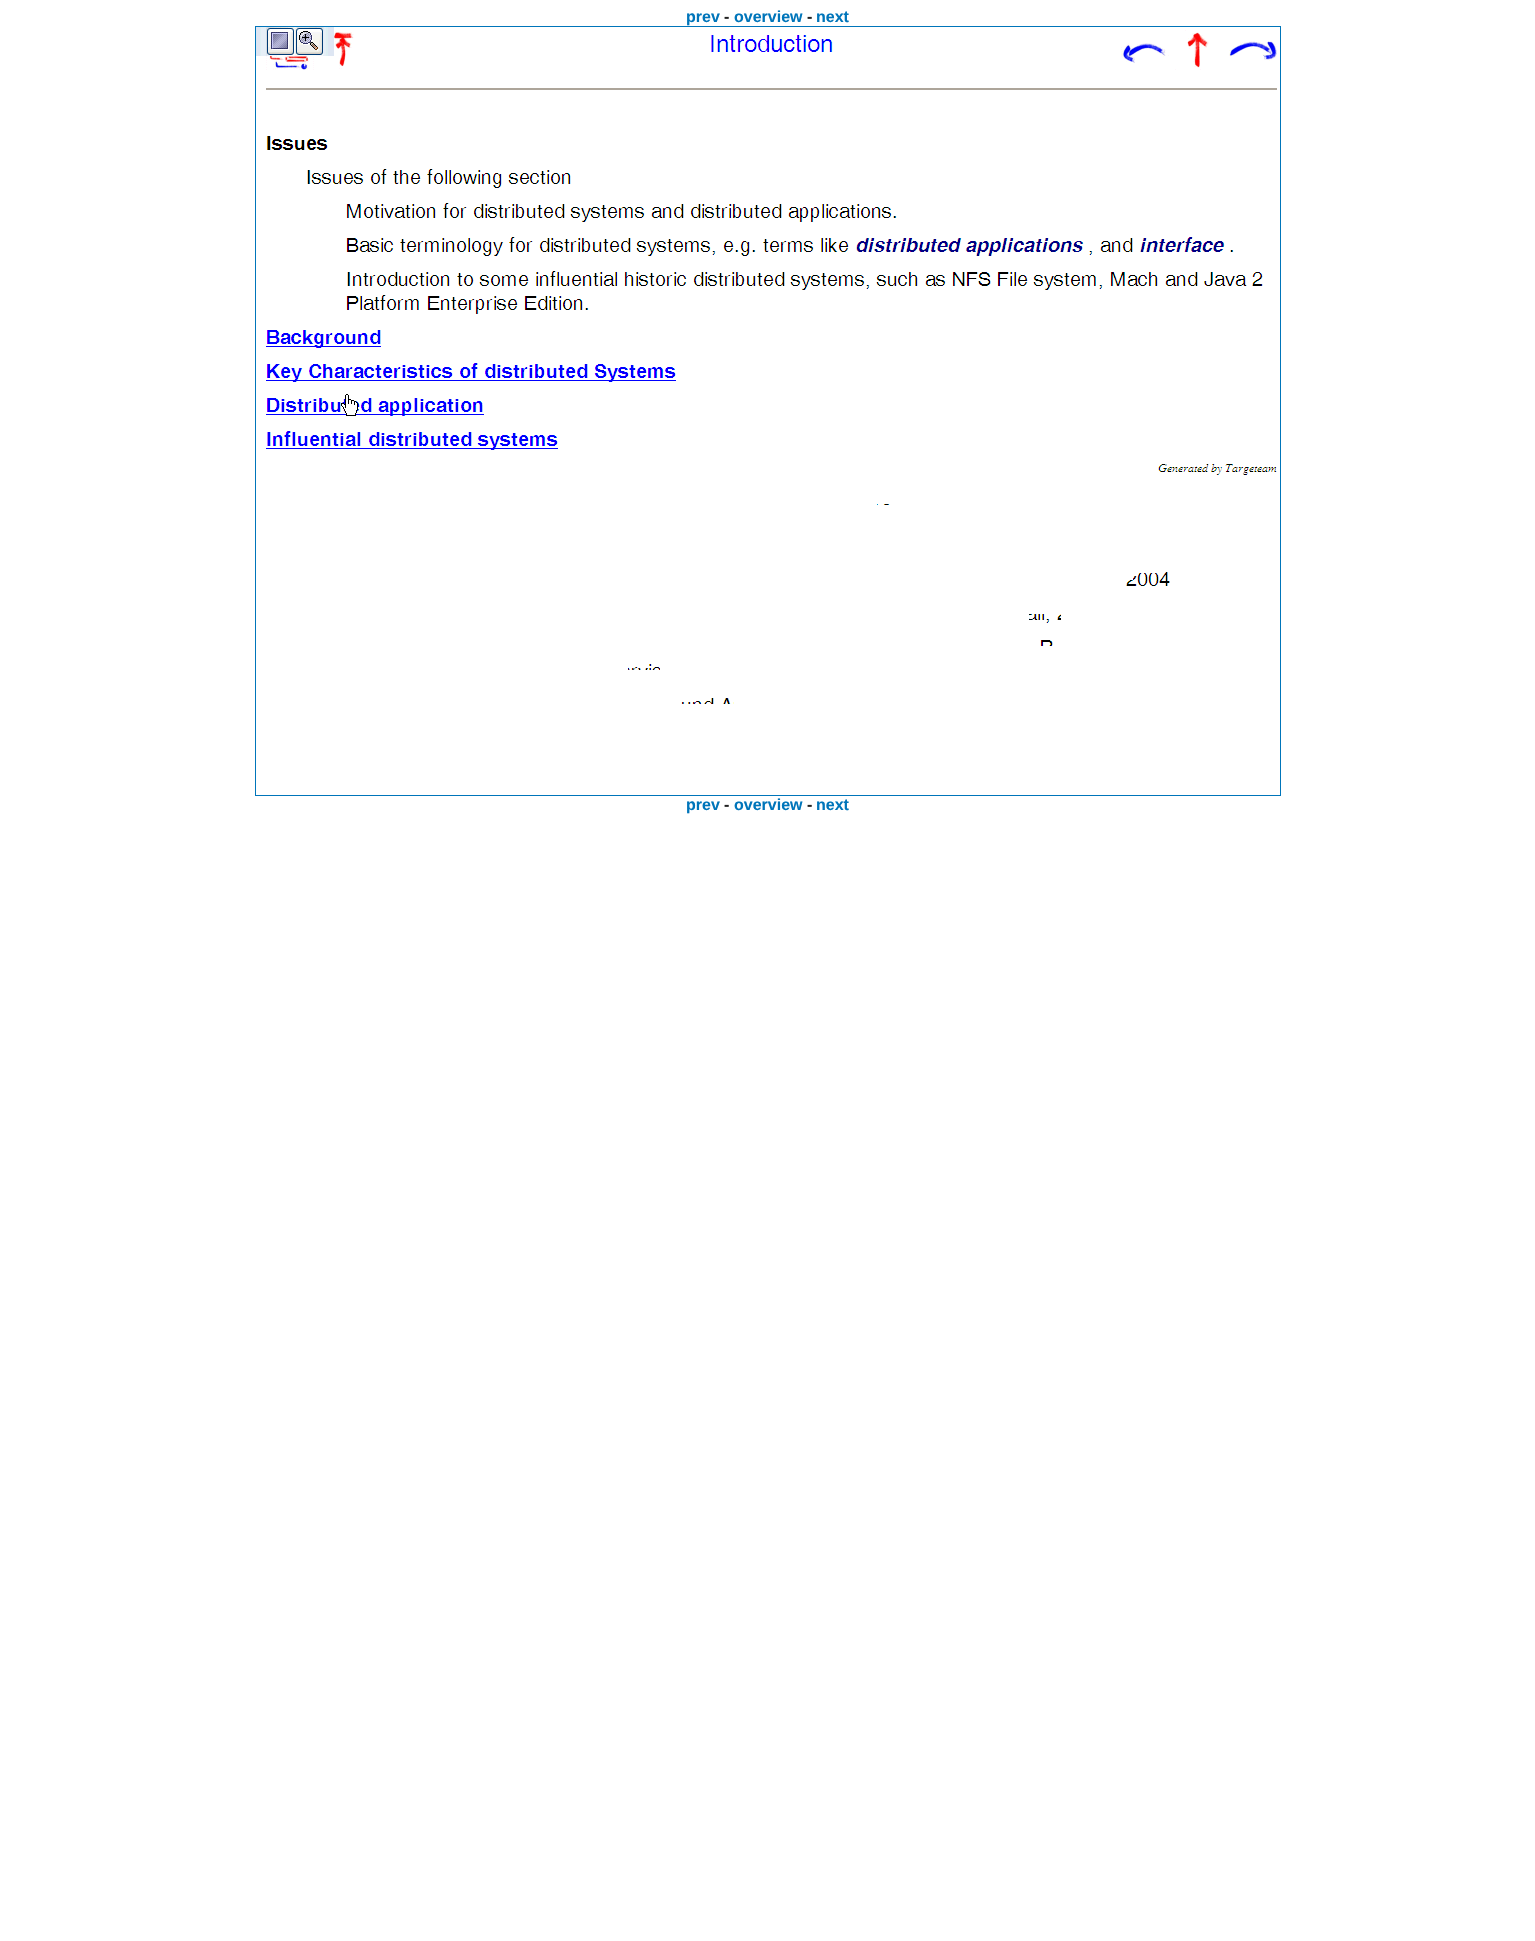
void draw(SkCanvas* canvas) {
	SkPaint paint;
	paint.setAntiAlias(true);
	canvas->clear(0xffffffff);
	SkFont f1(fontMgr->matchFamilyStyle("Liberation Sans", SkFontStyle::Bold()), 16);
	f1.setSubpixel(true);
	paint.setColor(0xff0075ba);
	canvas->drawString("prev", 686, 22, f1, paint);
	paint.setStroke(true);
	paint.setStrokeWidth(1);
	canvas->drawRect(SkRect::MakeXYWH(255.5, 26.5, 1025, 769), paint);
	paint.setStroke(false);
	paint.setColor(0xff222222);
	canvas->drawString("-", 724, 22, f1, paint);
	paint.setColor(0xff0075ba);
	canvas->drawString("overview", 734, 22, f1, paint);
	paint.setColor(0xff222222);
	canvas->drawString("-", 807, 22, f1, paint);
	paint.setColor(0xff0075ba);
	canvas->drawString("next", 816, 22, f1, paint);
	canvas->drawImageRect(SkImages::DeferredFromEncodedData(SkData::MakeFromFileName("img1.png")), SkRect::MakeXYWH(256, 27, 1021, 677), SkSamplingOptions());
	canvas->drawString("prev", 686, 810, f1, paint);
	paint.setColor(0xff222222);
	canvas->drawString("-", 724, 810, f1, paint);
	paint.setColor(0xff0075ba);
	canvas->drawString("overview", 734, 810, f1, paint);
	paint.setColor(0xff222222);
	canvas->drawString("-", 807, 810, f1, paint);
	paint.setColor(0xff0075ba);
	canvas->drawString("next", 816, 810, f1, paint);
}
